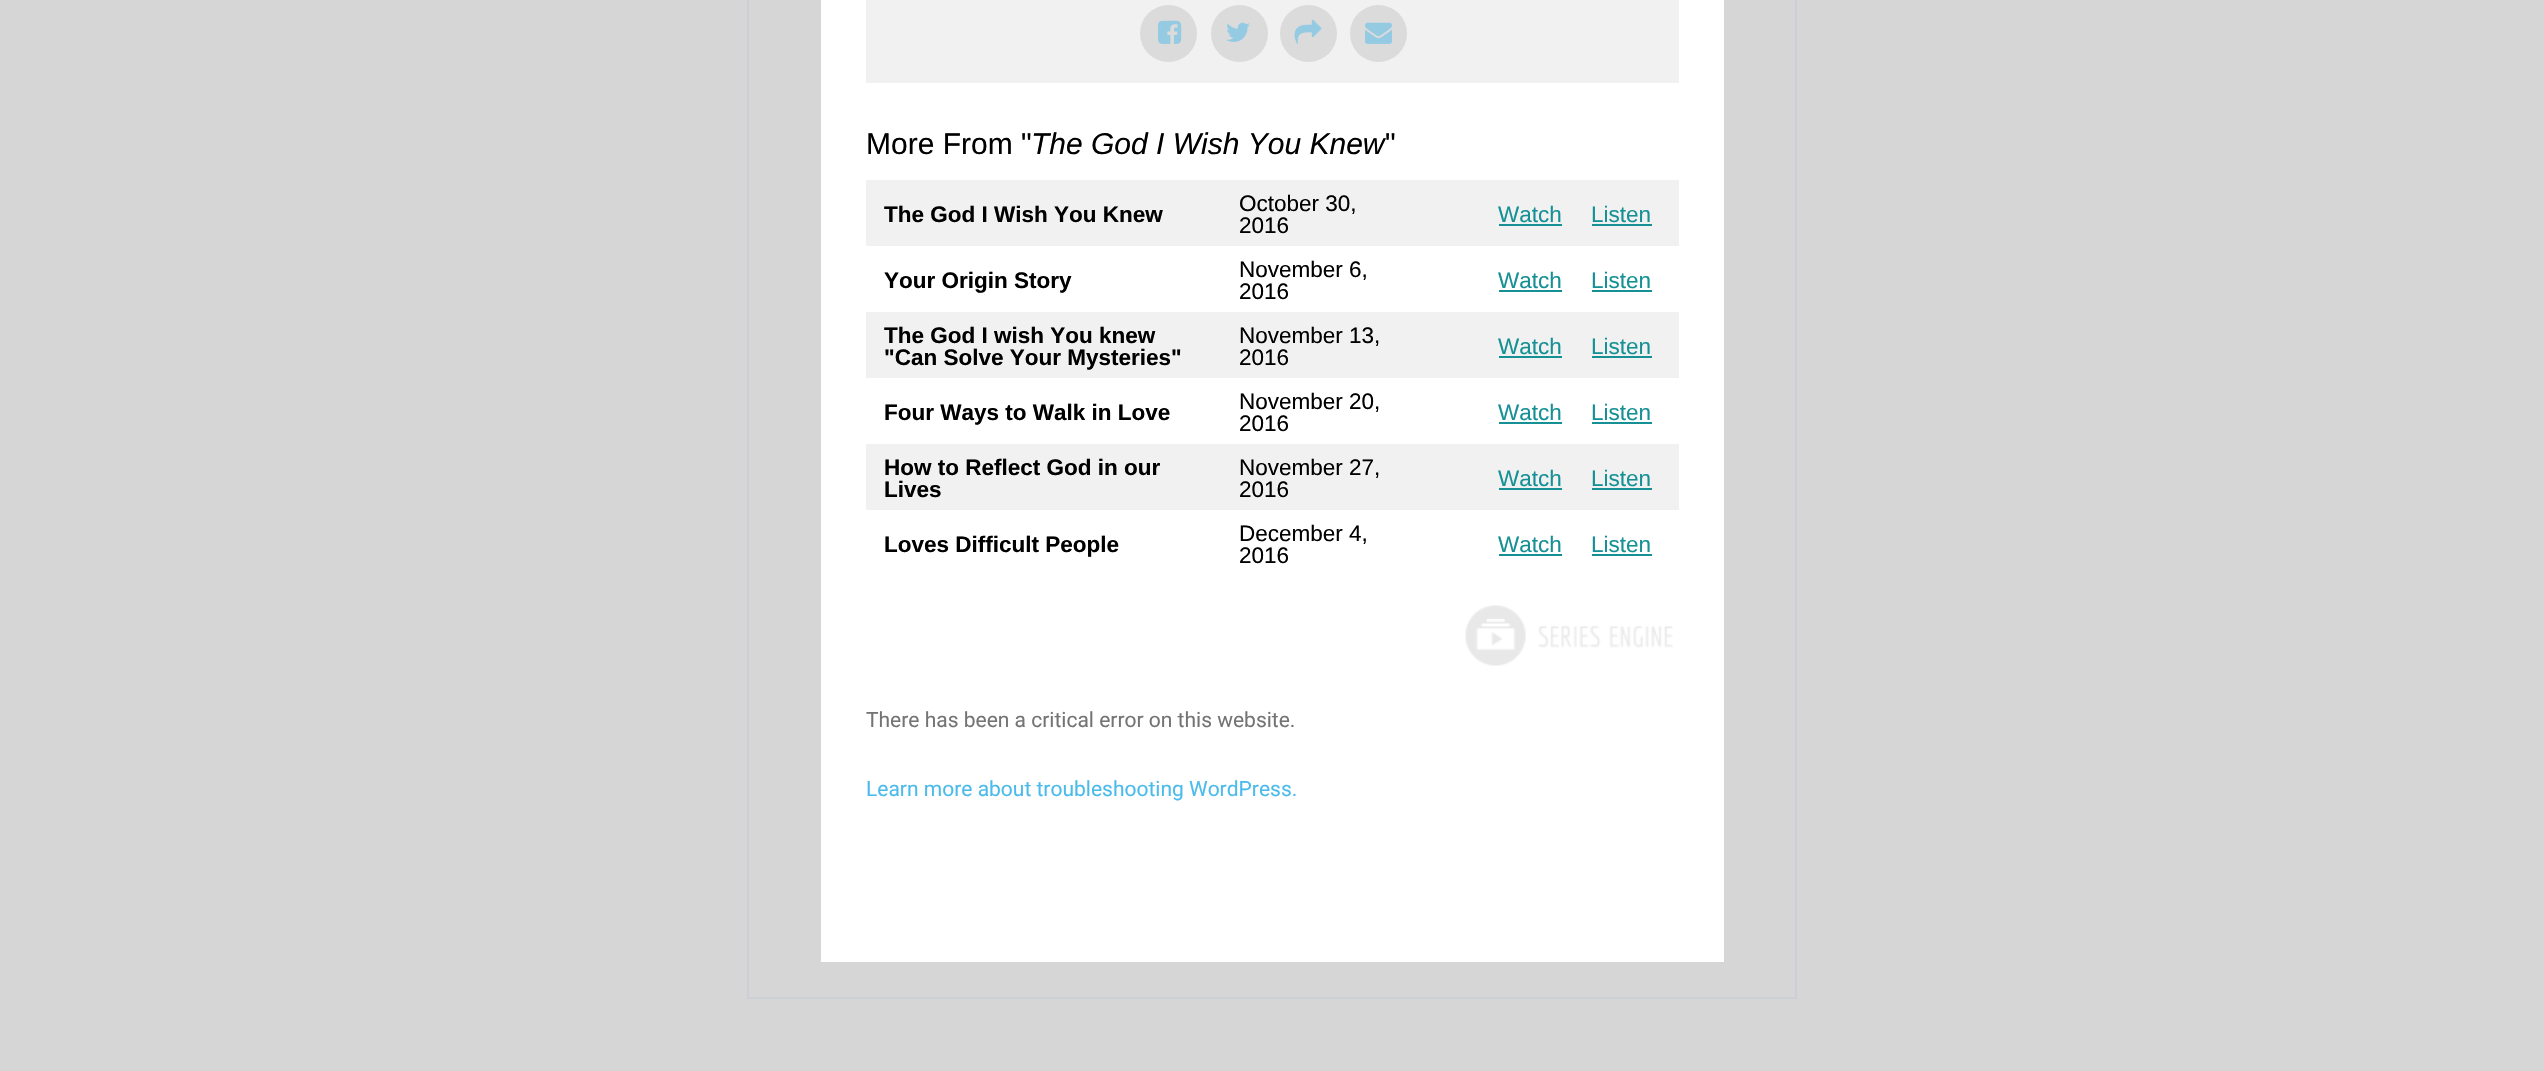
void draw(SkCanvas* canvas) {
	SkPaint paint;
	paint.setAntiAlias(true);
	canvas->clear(0xffd7d6d6);
	paint.setStroke(true);
	paint.setStrokeWidth(2);
	paint.setColor(0xffccd0d4);
	canvas->drawRect(SkRect::MakeXYWH(748, -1, 1048, 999), paint);
	paint.setStroke(false);
	paint.setColor(0xffffffff);
	canvas->drawRect(SkRect::MakeXYWH(821, 0, 903, 962), paint);
	paint.setColor(0xfff1f1f1);
	canvas->drawRect(SkRect::MakeXYWH(866, 0, 813, 83), paint);
	paint.setColor(0xffdcdbdb);
	canvas->drawCircle(1168.5, 33.5, 28.5, paint);
	canvas->drawImageRect(SkImages::DeferredFromEncodedData(SkData::MakeFromFileName("img1.png")), SkRect::MakeXYWH(1158, 20, 24, 24), SkSamplingOptions());
	canvas->drawCircle(1239.5, 33.5, 28.5, paint);
	canvas->drawImageRect(SkImages::DeferredFromEncodedData(SkData::MakeFromFileName("img2.png")), SkRect::MakeXYWH(1226, 22, 24, 20), SkSamplingOptions());
	canvas->drawCircle(1308.5, 33.5, 28.5, paint);
	canvas->drawImageRect(SkImages::DeferredFromEncodedData(SkData::MakeFromFileName("img3.png")), SkRect::MakeXYWH(1294, 19, 28, 25), SkSamplingOptions());
	canvas->drawCircle(1378.5, 33.5, 28.5, paint);
	canvas->drawImageRect(SkImages::DeferredFromEncodedData(SkData::MakeFromFileName("img4.png")), SkRect::MakeXYWH(1365, 22, 27, 22), SkSamplingOptions());
	SkFont f1(fontMgr->matchFamilyStyle("Liberation Sans", SkFontStyle::Normal()), 30);
	f1.setSubpixel(true);
	paint.setColor(0xff000000);
	canvas->drawString("More From \"", 866, 154, f1, paint);
	SkFont f2(fontMgr->matchFamilyStyle("Liberation Sans", SkFontStyle::Italic()), 30);
	f2.setSubpixel(true);
	canvas->drawString("The God I Wish You Knew", 1031, 154, f2, paint);
	canvas->drawString("\"", 1385, 154, f1, paint);
	paint.setColor(0xfff1f1f1);
	canvas->drawRect(SkRect::MakeXYWH(866, 180, 813, 66), paint);
	SkFont f3(fontMgr->matchFamilyStyle("Liberation Sans", SkFontStyle::Bold()), 22.5);
	f3.setSubpixel(true);
	paint.setColor(0xff000000);
	canvas->drawString("The God I Wish You Knew", 884, 222, f3, paint);
	SkFont f4(fontMgr->matchFamilyStyle("Liberation Sans", SkFontStyle::Normal()), 22.5);
	f4.setSubpixel(true);
	canvas->drawString("October 30,", 1239, 211, f4, paint);
	canvas->drawString("2016", 1239, 233, f4, paint);
	paint.setColor(0xff159195);
	canvas->drawString("Watch", 1498, 222, f4, paint);
	canvas->drawRect(SkRect::MakeXYWH(1499, 224, 63, 2), paint);
	canvas->drawString("Listen", 1591, 222, f4, paint);
	canvas->drawRect(SkRect::MakeXYWH(1592, 224, 60, 2), paint);
	paint.setColor(0xff000000);
	canvas->drawString("Your Origin Story", 884, 288, f3, paint);
	canvas->drawString("November 6,", 1239, 277, f4, paint);
	canvas->drawString("2016", 1239, 299, f4, paint);
	paint.setColor(0xff159195);
	canvas->drawString("Watch", 1498, 288, f4, paint);
	canvas->drawRect(SkRect::MakeXYWH(1499, 290, 63, 2), paint);
	canvas->drawString("Listen", 1591, 288, f4, paint);
	canvas->drawRect(SkRect::MakeXYWH(1592, 290, 60, 2), paint);
	paint.setColor(0xfff1f1f1);
	canvas->drawRect(SkRect::MakeXYWH(866, 312, 813, 66), paint);
	paint.setColor(0xff000000);
	canvas->drawString("The God I wish You knew", 884, 343, f3, paint);
	canvas->drawString("\"Can Solve Your Mysteries\"", 884, 365, f3, paint);
	canvas->drawString("November 13,", 1239, 343, f4, paint);
	canvas->drawString("2016", 1239, 365, f4, paint);
	paint.setColor(0xff159195);
	canvas->drawString("Watch", 1498, 354, f4, paint);
	canvas->drawRect(SkRect::MakeXYWH(1499, 356, 63, 2), paint);
	canvas->drawString("Listen", 1591, 354, f4, paint);
	canvas->drawRect(SkRect::MakeXYWH(1592, 356, 60, 2), paint);
	paint.setColor(0xff000000);
	canvas->drawString("Four Ways to Walk in Love", 884, 420, f3, paint);
	canvas->drawString("November 20,", 1239, 409, f4, paint);
	canvas->drawString("2016", 1239, 431, f4, paint);
	paint.setColor(0xff159195);
	canvas->drawString("Watch", 1498, 420, f4, paint);
	canvas->drawRect(SkRect::MakeXYWH(1499, 422, 63, 2), paint);
	canvas->drawString("Listen", 1591, 420, f4, paint);
	canvas->drawRect(SkRect::MakeXYWH(1592, 422, 60, 2), paint);
	paint.setColor(0xfff1f1f1);
	canvas->drawRect(SkRect::MakeXYWH(866, 444, 813, 66), paint);
	paint.setColor(0xff000000);
	canvas->drawString("How to Reflect God in our", 884, 475, f3, paint);
	canvas->drawString("Lives", 884, 497, f3, paint);
	canvas->drawString("November 27,", 1239, 475, f4, paint);
	canvas->drawString("2016", 1239, 497, f4, paint);
	paint.setColor(0xff159195);
	canvas->drawString("Watch", 1498, 486, f4, paint);
	canvas->drawRect(SkRect::MakeXYWH(1499, 488, 63, 2), paint);
	canvas->drawString("Listen", 1591, 486, f4, paint);
	canvas->drawRect(SkRect::MakeXYWH(1592, 488, 60, 2), paint);
	paint.setColor(0xff000000);
	canvas->drawString("Loves Difficult People", 884, 552, f3, paint);
	canvas->drawString("December 4,", 1239, 541, f4, paint);
	canvas->drawString("2016", 1239, 563, f4, paint);
	paint.setColor(0xff159195);
	canvas->drawString("Watch", 1498, 552, f4, paint);
	canvas->drawRect(SkRect::MakeXYWH(1499, 554, 63, 2), paint);
	canvas->drawString("Listen", 1591, 552, f4, paint);
	canvas->drawRect(SkRect::MakeXYWH(1592, 554, 60, 2), paint);
	canvas->drawImageRect(SkImages::DeferredFromEncodedData(SkData::MakeFromFileName("img5.png")), SkRect::MakeXYWH(1465, 605, 208, 61), SkSamplingOptions());
	SkFont f5(fontMgr->matchFamilyStyle("Roboto", SkFontStyle::Normal()), 21);
	f5.setSubpixel(true);
	paint.setColor(0xff747474);
	canvas->drawString("There has been a critical error on this website.", 866, 727, f5, paint);
	paint.setColor(0xff4bbbeb);
	canvas->drawString("Learn more about troubleshooting WordPress.", 866, 796, f5, paint);
}
